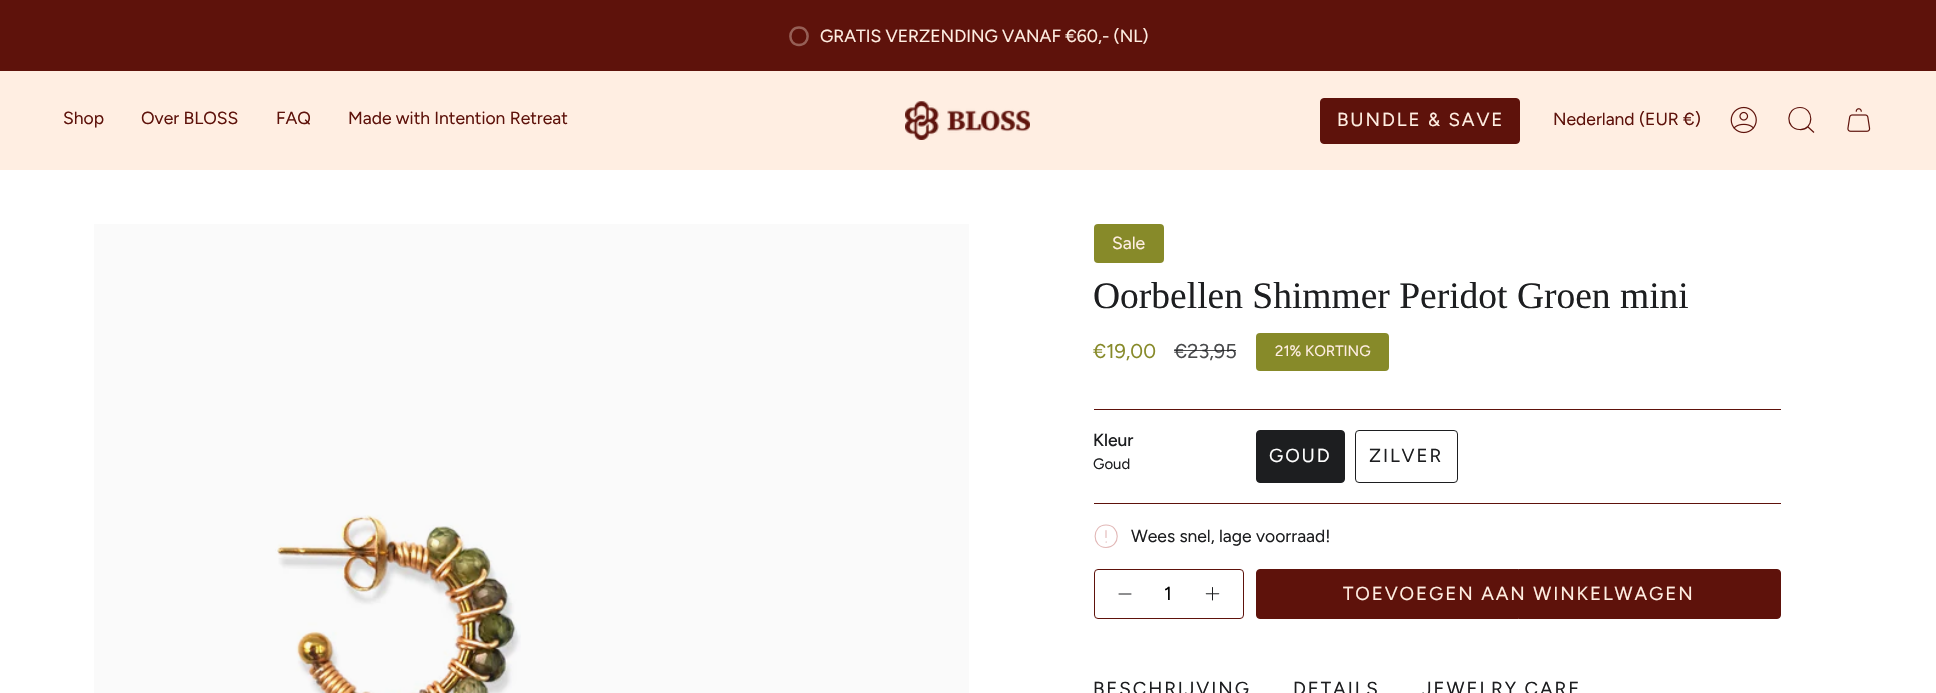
void draw(SkCanvas* canvas) {
	SkPaint paint;
	paint.setAntiAlias(true);
	auto spacedText = [&](const char* s, float x, float y, const SkFont& font, const SkPaint& ink, float letter, float word) {
		std::vector<SkGlyphID> glyphs(font.countText(s, strlen(s), SkTextEncoding::kUTF8));
		std::vector<float> xs(glyphs.size());
		font.textToGlyphs(s, strlen(s), SkTextEncoding::kUTF8, glyphs);
		font.getXPos(glyphs, xs, x);
		float extra = 0;
		for (size_t i = 0; i < glyphs.size(); i++) {
			xs[i] += extra;
			extra += letter + word * (glyphs[i] == font.unicharToGlyph(' '));
		}
		canvas->drawTextBlob(SkTextBlob::MakeFromPosHGlyphs(glyphs, xs, y, font), 0, 0, ink);
	};
	auto svgPath = [&](const char* data, bool evenOdd = false) {
		SkPath result = *SkParsePath::FromSVGString(data);
		if (evenOdd) result.setFillType(SkPathFillType::kEvenOdd);
		return result;
	};
	canvas->clear(0xffffeee2);
	paint.setColor(0xff5e120b);
	canvas->drawRect(SkRect::MakeXYWH(0, 0, 1936, 71), paint);
	paint.setStroke(true);
	paint.setStrokeWidth(2.5);
	paint.setColor(0xff965f56);
	canvas->drawPath(svgPath("M799 27.5C787.5 27.5 787.5 45 799 45C810.5 45 810.5 27.5 799 27.5Z"), paint);
	SkFont f1(fontMgr->matchFamilyStyle("Figtree", SkFontStyle::Normal()), 17.5);
	f1.setSubpixel(true);
	paint.setStroke(false);
	paint.setColor(0xffffeee2);
	canvas->drawString("GRATIS VERZENDING VANAF €60,- (NL)", 820, 42, f1, paint);
	paint.setColor(0xff5e120b);
	canvas->drawString("Shop", 63, 124, f1, paint);
	canvas->drawString("Over BLOSS", 141, 124, f1, paint);
	canvas->drawString("FAQ", 276, 124, f1, paint);
	canvas->drawString("Made with Intention Retreat", 348, 124, f1, paint);
	canvas->drawImageRect(SkImages::DeferredFromEncodedData(SkData::MakeFromFileName("img1.png")), SkRect::MakeXYWH(905, 101, 125, 39), SkSamplingOptions());
	canvas->drawRoundRect(SkRect::MakeXYWH(1320.5, 98.5, 199, 45), 3.5, 3.5, paint);
	paint.setStroke(true);
	paint.setStrokeWidth(1);
	canvas->drawRoundRect(SkRect::MakeXYWH(1320.5, 98.5, 199, 45), 3.5, 3.5, paint);
	SkFont f2(fontMgr->matchFamilyStyle("Figtree", SkFontStyle::Normal()), 18.75);
	f2.setSubpixel(true);
	paint.setStroke(false);
	paint.setColor(0xffffeee2);
	spacedText("BUNDLE & SAVE", 1337, 126, f2, paint, 1.9, 0);
	paint.setColor(0xff5e120b);
	canvas->drawString("Nederland (EUR €)", 1553, 125, f1, paint);
	canvas->drawImageRect(SkImages::DeferredFromEncodedData(SkData::MakeFromFileName("img2.png")), SkRect::MakeXYWH(1730, 106, 27, 28), SkSamplingOptions());
	paint.setStroke(true);
	paint.setStrokeWidth(1.2);
	canvas->drawPath(svgPath("M1800 107.5C1814.5 107.5 1814.5 130.5 1799.5 129.5C1785 129 1785.5 107.5 1800 107.5ZM1807.5 126.5L1814 132.5"), paint);
	canvas->drawImageRect(SkImages::DeferredFromEncodedData(SkData::MakeFromFileName("img3.png")), SkRect::MakeXYWH(1847, 108, 24, 24), SkSamplingOptions());
	paint.setStroke(false);
	paint.setColor(0xffffffff);
	canvas->drawRect(SkRect::MakeXYWH(0, 170, 1936, 523), paint);
	paint.setColor(0xfffafafa);
	canvas->drawRect(SkRect::MakeXYWH(94, 224, 875, 469), paint);
	canvas->drawImageRect(SkImages::DeferredFromEncodedData(SkData::MakeFromFileName("img4.png")), SkRect::MakeXYWH(275, 514, 246, 179), SkSamplingOptions());
	paint.setColor(0xff878a29);
	canvas->drawRoundRect(SkRect::MakeXYWH(1094, 224, 70, 39), 4, 4, paint);
	paint.setColor(0xffffeee2);
	canvas->drawString("Sale", 1112, 249, f1, paint);
	SkFont f3(fontMgr->matchFamilyStyle("Liberation Serif", SkFontStyle::Normal()), 37.5);
	f3.setSubpixel(true);
	paint.setColor(0xff1d1e20);
	canvas->drawString("Oorbellen Shimmer Peridot Groen mini", 1093, 308, f3, paint);
	SkFont f4(fontMgr->matchFamilyStyle("Figtree", SkFontStyle::Normal()), 20);
	f4.setSubpixel(true);
	paint.setColor(0xff878a29);
	canvas->drawString("€19,00", 1093, 358, f4, paint);
	paint.setColor(0xff4a4b4d);
	canvas->drawString("€23,95", 1174, 358, f4, paint);
	paint.setColor(0xcc1d1e20);
	canvas->drawRect(SkRect::MakeXYWH(1174, 350, 62, 1), paint);
	paint.setColor(0xff878a29);
	canvas->drawRoundRect(SkRect::MakeXYWH(1256, 333, 133, 38), 4, 4, paint);
	SkFont f5(fontMgr->matchFamilyStyle("Figtree", SkFontStyle::Normal()), 15);
	f5.setSubpixel(true);
	paint.setColor(0xffffeee2);
	canvas->drawString("21% KORTING", 1275, 356, f5, paint);
	paint.setColor(0xff5e120b);
	canvas->drawRect(SkRect::MakeXYWH(1094, 409, 687, 1), paint);
	canvas->drawRect(SkRect::MakeXYWH(1094, 503, 687, 1), paint);
	SkFont f6(fontMgr->matchFamilyStyle("Figtree", SkFontStyle(500, SkFontStyle::kNormal_Width, SkFontStyle::kUpright_Slant)), 17.5);
	f6.setSubpixel(true);
	paint.setColor(0xff1d1e20);
	canvas->drawString("Kleur", 1093, 446, f6, paint);
	canvas->drawString("Goud", 1093, 469, f5, paint);
	canvas->drawRoundRect(SkRect::MakeXYWH(1256.5, 430.5, 88, 52), 3.5, 3.5, paint);
	paint.setStroke(true);
	paint.setStrokeWidth(1);
	canvas->drawRoundRect(SkRect::MakeXYWH(1256.5, 430.5, 88, 52), 3.5, 3.5, paint);
	paint.setStroke(false);
	paint.setColor(0xffffffff);
	spacedText("GOUD", 1269, 462, f2, paint, 1.9, 0);
	paint.setStroke(true);
	paint.setColor(0xff1d1e20);
	canvas->drawRoundRect(SkRect::MakeXYWH(1355.5, 430.5, 102, 52), 3.5, 3.5, paint);
	paint.setStroke(false);
	spacedText("ZILVER", 1369, 462, f2, paint, 1.9, 0);
	paint.setStroke(true);
	paint.setStrokeWidth(1.1);
	paint.setStrokeCap(SkPaint::kRound_Cap);
	paint.setStrokeJoin(SkPaint::kRound_Join);
	paint.setColor(0xffe2b7b6);
	canvas->drawPath(svgPath("M1106 530.5V537.5M1106 542H1106.5M1106 547.5C1121 547.5 1121 525 1106 525C1091.5 525 1091.5 547.5 1106 547.5Z"), paint);
	paint.setStroke(false);
	paint.setColor(0xff1d1e20);
	canvas->drawString("Wees snel, lage voorraad!", 1131, 542, f1, paint);
	paint.setStroke(true);
	paint.setStrokeWidth(1);
	paint.setStrokeCap(SkPaint::kButt_Cap);
	paint.setStrokeJoin(SkPaint::kMiter_Join);
	paint.setColor(0xff5e120b);
	canvas->drawRoundRect(SkRect::MakeXYWH(1094.5, 569.5, 149, 49), 3.5, 3.5, paint);
	paint.setStrokeCap(SkPaint::kRound_Cap);
	paint.setStrokeJoin(SkPaint::kRound_Join);
	paint.setColor(0xff1d1e20);
	canvas->drawPath(svgPath("M1119 594H1131"), paint);
	paint.setStroke(false);
	paint.setColor(0xff000000);
	canvas->drawString("1", 1164, 600, f2, paint);
	canvas->drawImageRect(SkImages::DeferredFromEncodedData(SkData::MakeFromFileName("img5.png")), SkRect::MakeXYWH(1205, 587, 15, 14), SkSamplingOptions());
	paint.setColor(0xff5e120b);
	canvas->drawRoundRect(SkRect::MakeXYWH(1256.5, 569.5, 524, 49), 3.5, 3.5, paint);
	paint.setStroke(true);
	paint.setStrokeCap(SkPaint::kButt_Cap);
	paint.setStrokeJoin(SkPaint::kMiter_Join);
	canvas->drawRoundRect(SkRect::MakeXYWH(1256.5, 569.5, 524, 49), 3.5, 3.5, paint);
	paint.setStroke(false);
	paint.setColor(0xffffeee2);
	spacedText("TOEVOEGEN AAN WINKELWAGEN", 1343, 600, f2, paint, 1.9, 0);
	paint.setColor(0xff1d1e20);
	spacedText("BESCHRIJVING", 1093, 695, f2, paint, 1.9, 0);
	spacedText("DETAILS", 1293, 695, f2, paint, 1.9, 0);
	spacedText("JEWELRY CARE", 1422, 695, f2, paint, 1.9, 0);
}
